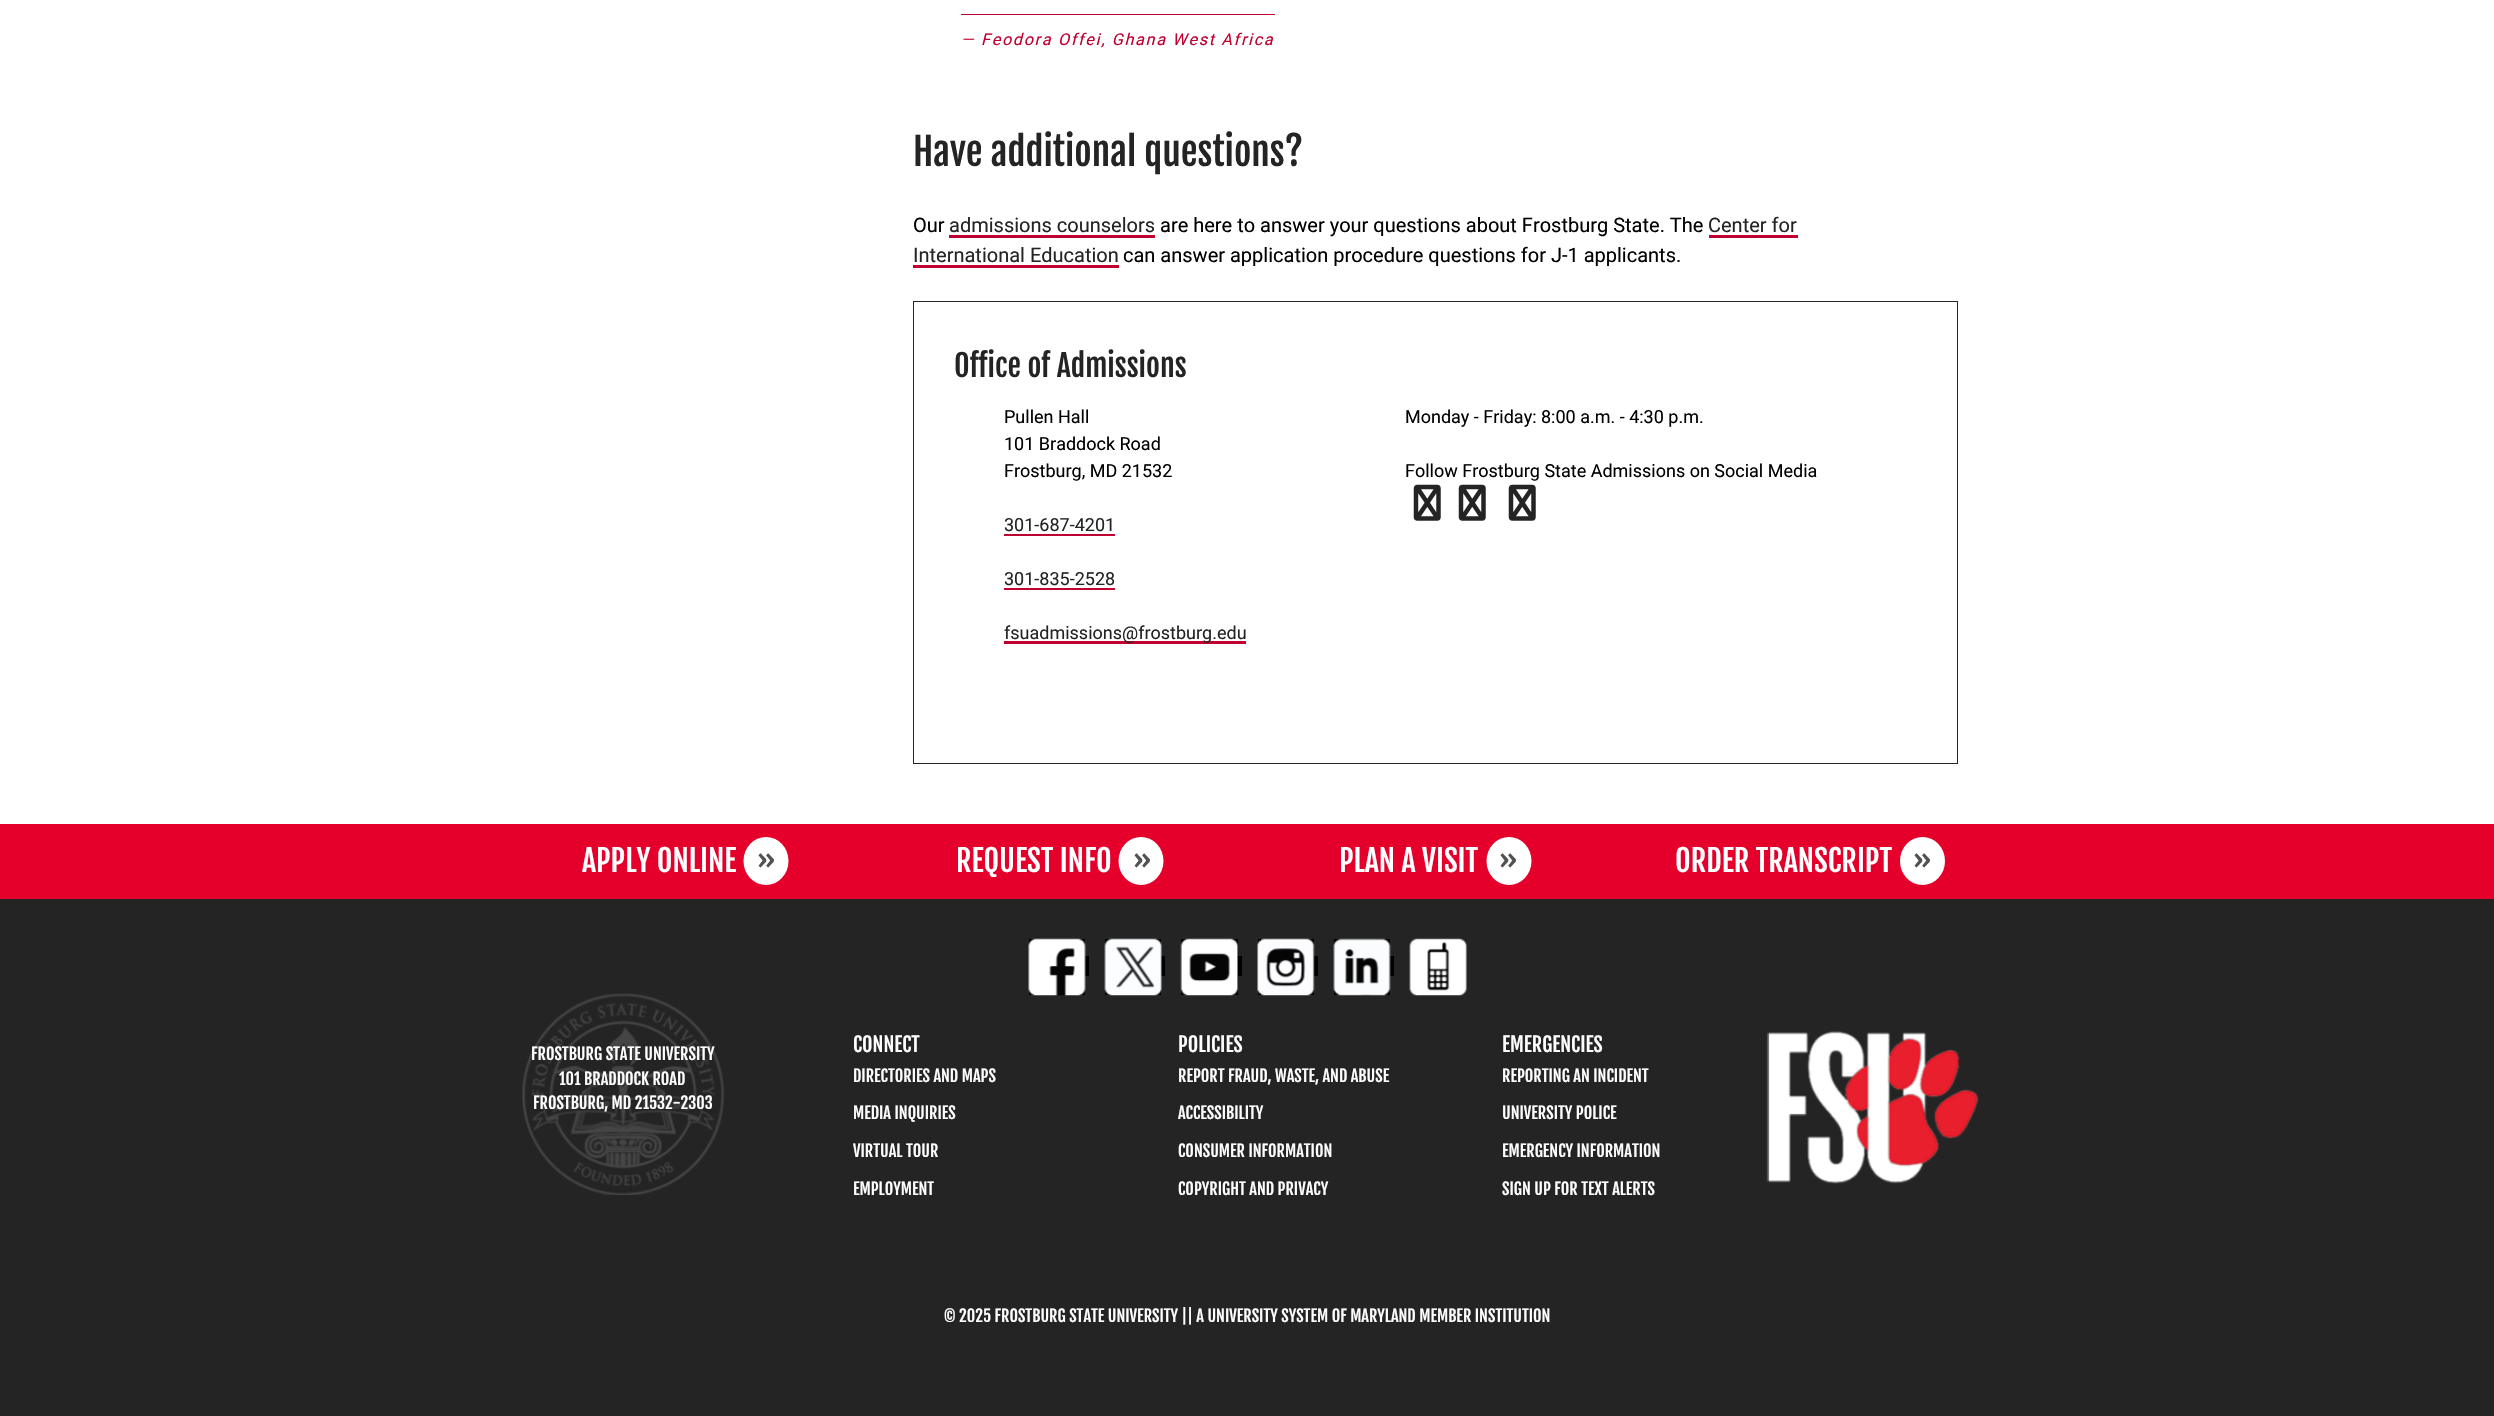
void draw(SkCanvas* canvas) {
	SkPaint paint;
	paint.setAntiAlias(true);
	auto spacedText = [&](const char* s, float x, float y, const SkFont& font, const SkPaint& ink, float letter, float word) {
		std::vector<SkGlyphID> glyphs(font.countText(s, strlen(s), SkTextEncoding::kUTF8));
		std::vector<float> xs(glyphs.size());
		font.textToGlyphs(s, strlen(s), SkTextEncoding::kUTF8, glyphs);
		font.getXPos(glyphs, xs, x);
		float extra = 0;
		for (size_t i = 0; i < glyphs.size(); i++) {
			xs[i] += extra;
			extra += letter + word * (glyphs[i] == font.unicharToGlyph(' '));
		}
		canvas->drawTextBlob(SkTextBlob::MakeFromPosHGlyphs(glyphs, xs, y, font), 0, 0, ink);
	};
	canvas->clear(0xffffffff);
	paint.setColor(0xffc00030);
	canvas->drawRect(SkRect::MakeXYWH(961, 14, 314, 1), paint);
	SkFont f1(fontMgr->matchFamilyStyle("Roboto", SkFontStyle::Italic()), 16.25);
	f1.setSubpixel(true);
	spacedText("— Feodora Offei, Ghana West Africa", 961, 45, f1, paint, 1.65, 0);
	SkFont f2(fontMgr->matchFamilyStyle("Fjalla One", SkFontStyle::Normal()), 37.5);
	f2.setSubpixel(true);
	paint.setColor(0xff242424);
	canvas->drawString("Have additional questions?", 913, 166, f2, paint);
	SkFont f3(fontMgr->matchFamilyStyle("Roboto", SkFontStyle::Normal()), 20);
	f3.setSubpixel(true);
	paint.setColor(0xff000000);
	canvas->drawString("Our", 913, 232, f3, paint);
	paint.setColor(0xff242424);
	canvas->drawString("admissions counselors", 949, 232, f3, paint);
	paint.setColor(0xffc00030);
	canvas->drawRect(SkRect::MakeXYWH(949, 235, 206, 3), paint);
	paint.setColor(0xff000000);
	canvas->drawString("are here to answer your questions about Frostburg State. The", 1160, 232, f3, paint);
	paint.setColor(0xff242424);
	canvas->drawString("Center for", 1708, 232, f3, paint);
	paint.setColor(0xffc00030);
	canvas->drawRect(SkRect::MakeXYWH(1709, 235, 89, 3), paint);
	paint.setColor(0xff242424);
	canvas->drawString("International Education", 913, 262, f3, paint);
	paint.setColor(0xffc00030);
	canvas->drawRect(SkRect::MakeXYWH(913, 265, 206, 3), paint);
	paint.setColor(0xff000000);
	canvas->drawString("can answer application procedure questions for J-1 applicants.", 1123, 262, f3, paint);
	paint.setStroke(true);
	paint.setStrokeWidth(1);
	paint.setColor(0xff242424);
	canvas->drawRect(SkRect::MakeXYWH(913.5, 301.5, 1044, 462), paint);
	SkFont f4(fontMgr->matchFamilyStyle("Fjalla One", SkFontStyle::Normal()), 30);
	f4.setSubpixel(true);
	paint.setStroke(false);
	canvas->drawString("Office of Admissions", 954, 377, f4, paint);
	SkFont f5(fontMgr->matchFamilyStyle("Roboto", SkFontStyle::Normal()), 18);
	f5.setSubpixel(true);
	paint.setColor(0xff000000);
	canvas->drawString("Pullen Hall", 1004, 423, f5, paint);
	canvas->drawString("101 Braddock Road", 1004, 450, f5, paint);
	canvas->drawString("Frostburg, MD 21532", 1004, 477, f5, paint);
	paint.setColor(0xff242424);
	canvas->drawString("301-687-4201", 1004, 531, f5, paint);
	paint.setColor(0xffc00030);
	canvas->drawRect(SkRect::MakeXYWH(1004, 534, 111, 2), paint);
	paint.setColor(0xff242424);
	canvas->drawString("301-835-2528", 1004, 585, f5, paint);
	paint.setColor(0xffc00030);
	canvas->drawRect(SkRect::MakeXYWH(1004, 588, 111, 2), paint);
	canvas->drawRect(SkRect::MakeXYWH(1004, 641, 242, 3), paint);
	paint.setColor(0xff242424);
	canvas->drawString("fsuadmissions@frostburg.edu", 1004, 639, f5, paint);
	paint.setColor(0xff000000);
	canvas->drawString("Monday - Friday: 8:00 a.m. - 4:30 p.m.", 1405, 423, f5, paint);
	canvas->drawString("Follow Frostburg State Admissions on Social Media", 1405, 477, f5, paint);
	canvas->drawImageRect(SkImages::DeferredFromEncodedData(SkData::MakeFromFileName("img1.png")), SkRect::MakeXYWH(1413, 484, 28, 37), SkSamplingOptions());
	canvas->drawImageRect(SkImages::DeferredFromEncodedData(SkData::MakeFromFileName("img1.png")), SkRect::MakeXYWH(1458, 484, 28, 37), SkSamplingOptions());
	canvas->drawImageRect(SkImages::DeferredFromEncodedData(SkData::MakeFromFileName("img1.png")), SkRect::MakeXYWH(1508, 484, 28, 37), SkSamplingOptions());
	paint.setColor(0xffe4002b);
	canvas->drawRect(SkRect::MakeXYWH(0, 824, 2494, 75), paint);
	paint.setColor(0xffffffff);
	canvas->drawString("APPLY ONLINE", 582, 872, f4, paint);
	canvas->drawOval(SkRect::MakeXYWH(743.5, 837, 45, 48), paint);
	paint.setColor(0xff525252);
	canvas->drawString("»", 756, 872, f4, paint);
	paint.setColor(0xffffffff);
	canvas->drawString("REQUEST INFO", 956, 872, f4, paint);
	canvas->drawOval(SkRect::MakeXYWH(1118.5, 837, 45, 48), paint);
	paint.setColor(0xff525252);
	canvas->drawString("»", 1132, 872, f4, paint);
	paint.setColor(0xffffffff);
	canvas->drawString("PLAN A VISIT", 1339, 872, f4, paint);
	canvas->drawOval(SkRect::MakeXYWH(1486.5, 837, 45, 48), paint);
	paint.setColor(0xff525252);
	canvas->drawString("»", 1498, 872, f4, paint);
	paint.setColor(0xffffffff);
	canvas->drawString("ORDER TRANSCRIPT", 1675, 872, f4, paint);
	canvas->drawOval(SkRect::MakeXYWH(1900, 837, 45, 48), paint);
	paint.setColor(0xff525252);
	canvas->drawString("»", 1912, 872, f4, paint);
	paint.setColor(0xff242424);
	canvas->drawRect(SkRect::MakeXYWH(0, 899, 2494, 517), paint);
	paint.setColor(0xff000000);
	canvas->drawRect(SkRect::MakeXYWH(1029, 939, 56, 56), paint);
	canvas->drawRect(SkRect::MakeXYWH(1085, 956, 4, 20), paint);
	canvas->drawImageRect(SkImages::DeferredFromEncodedData(SkData::MakeFromFileName("img2.png")), SkRect::MakeXYWH(1028, 938, 58, 58), SkSamplingOptions());
	canvas->drawRect(SkRect::MakeXYWH(1105, 939, 56, 56), paint);
	canvas->drawRect(SkRect::MakeXYWH(1161, 956, 4, 20), paint);
	canvas->drawImageRect(SkImages::DeferredFromEncodedData(SkData::MakeFromFileName("img3.png")), SkRect::MakeXYWH(1104, 938, 58, 58), SkSamplingOptions());
	canvas->drawRect(SkRect::MakeXYWH(1181, 939, 57, 56), paint);
	canvas->drawRect(SkRect::MakeXYWH(1238, 956, 4, 20), paint);
	canvas->drawImageRect(SkImages::DeferredFromEncodedData(SkData::MakeFromFileName("img4.png")), SkRect::MakeXYWH(1180, 938, 58, 58), SkSamplingOptions());
	canvas->drawRect(SkRect::MakeXYWH(1258, 939, 56, 56), paint);
	canvas->drawRect(SkRect::MakeXYWH(1314, 956, 4, 20), paint);
	canvas->drawImageRect(SkImages::DeferredFromEncodedData(SkData::MakeFromFileName("img5.png")), SkRect::MakeXYWH(1257, 938, 58, 58), SkSamplingOptions());
	canvas->drawRect(SkRect::MakeXYWH(1334, 939, 56, 56), paint);
	canvas->drawRect(SkRect::MakeXYWH(1390, 956, 4, 20), paint);
	canvas->drawImageRect(SkImages::DeferredFromEncodedData(SkData::MakeFromFileName("img6.png")), SkRect::MakeXYWH(1333, 938, 58, 58), SkSamplingOptions());
	canvas->drawImageRect(SkImages::DeferredFromEncodedData(SkData::MakeFromFileName("img7.png")), SkRect::MakeXYWH(1409, 938, 58, 58), SkSamplingOptions());
	canvas->drawImageRect(SkImages::DeferredFromEncodedData(SkData::MakeFromFileName("img8.png")), SkRect::MakeXYWH(522, 993, 202, 202), SkSamplingOptions());
	SkFont f6(fontMgr->matchFamilyStyle("Fjalla One", SkFontStyle::Normal()), 16.25);
	f6.setSubpixel(true);
	paint.setColor(0xffffffff);
	canvas->drawString("FROSTBURG STATE UNIVERSITY", 531, 1060, f6, paint);
	canvas->drawString("101 BRADDOCK ROAD", 559, 1085, f6, paint);
	canvas->drawString("FROSTBURG, MD 21532-2303", 533, 1109, f6, paint);
	SkFont f7(fontMgr->matchFamilyStyle("Fjalla One", SkFontStyle::Normal()), 20);
	f7.setSubpixel(true);
	canvas->drawString("CONNECT", 853, 1052, f7, paint);
	canvas->drawString("DIRECTORIES AND MAPS", 853, 1082, f6, paint);
	canvas->drawString("MEDIA INQUIRIES", 853, 1119, f6, paint);
	canvas->drawString("VIRTUAL TOUR", 853, 1157, f6, paint);
	canvas->drawString("EMPLOYMENT", 853, 1195, f6, paint);
	canvas->drawString("POLICIES", 1178, 1052, f7, paint);
	canvas->drawString("REPORT FRAUD, WASTE, AND ABUSE", 1178, 1082, f6, paint);
	canvas->drawString("ACCESSIBILITY", 1178, 1119, f6, paint);
	canvas->drawString("CONSUMER INFORMATION", 1178, 1157, f6, paint);
	canvas->drawString("COPYRIGHT AND PRIVACY", 1178, 1195, f6, paint);
	canvas->drawString("EMERGENCIES", 1502, 1052, f7, paint);
	canvas->drawString("REPORTING AN INCIDENT", 1502, 1082, f6, paint);
	canvas->drawString("UNIVERSITY POLICE", 1502, 1119, f6, paint);
	canvas->drawString("EMERGENCY INFORMATION", 1502, 1157, f6, paint);
	canvas->drawString("SIGN UP FOR TEXT ALERTS", 1502, 1195, f6, paint);
	canvas->drawImageRect(SkImages::DeferredFromEncodedData(SkData::MakeFromFileName("img9.png")), SkRect::MakeXYWH(1766, 1031, 213, 153), SkSamplingOptions());
	canvas->drawString("© 2025 FROSTBURG STATE UNIVERSITY || A UNIVERSITY SYSTEM OF MARYLAND MEMBER INSTITUTION", 944, 1322, f6, paint);
}
